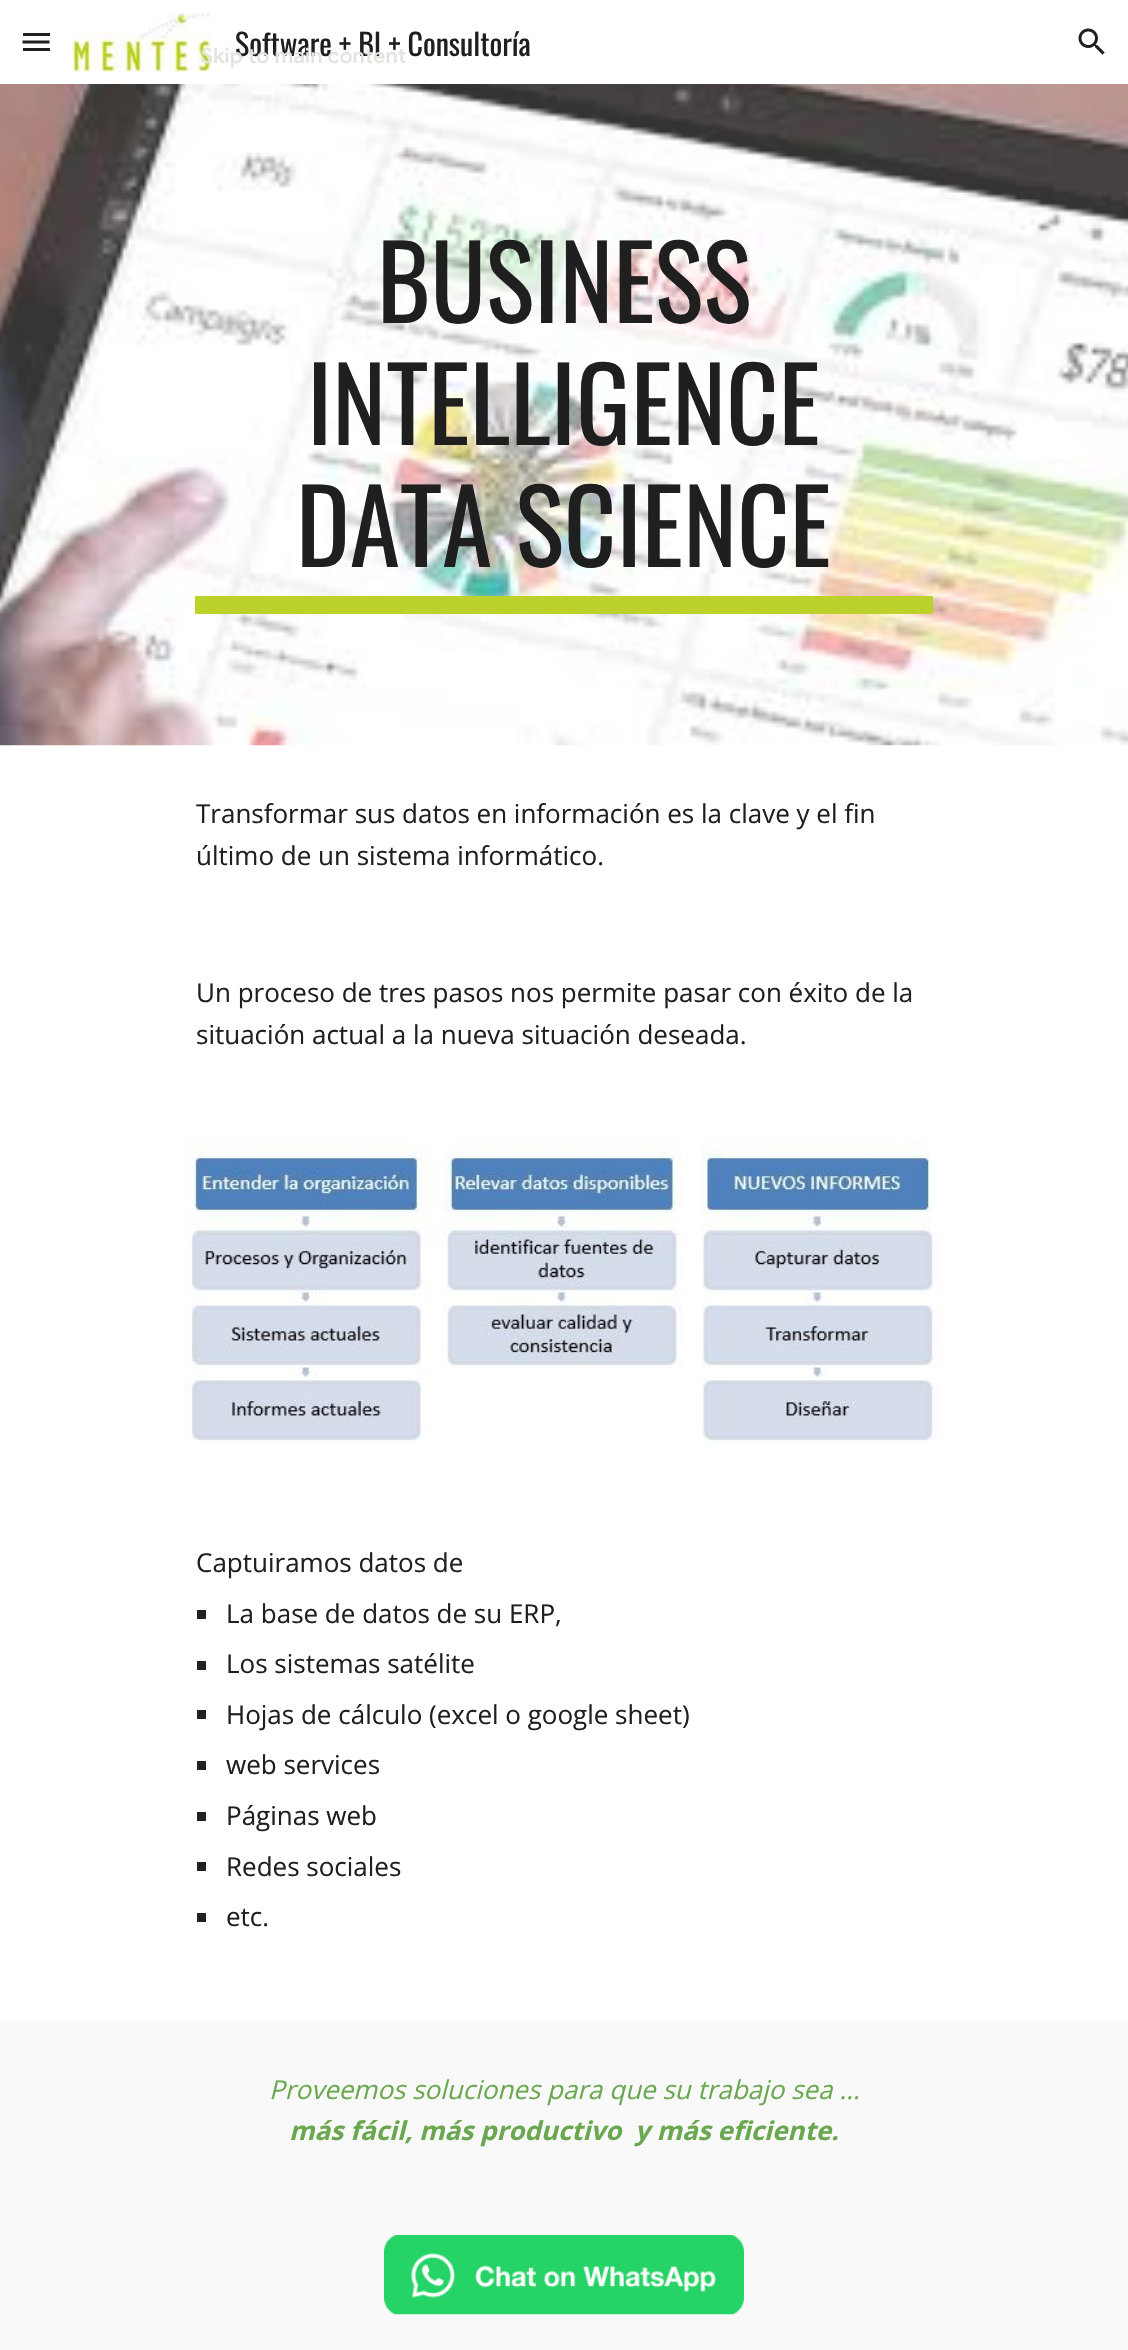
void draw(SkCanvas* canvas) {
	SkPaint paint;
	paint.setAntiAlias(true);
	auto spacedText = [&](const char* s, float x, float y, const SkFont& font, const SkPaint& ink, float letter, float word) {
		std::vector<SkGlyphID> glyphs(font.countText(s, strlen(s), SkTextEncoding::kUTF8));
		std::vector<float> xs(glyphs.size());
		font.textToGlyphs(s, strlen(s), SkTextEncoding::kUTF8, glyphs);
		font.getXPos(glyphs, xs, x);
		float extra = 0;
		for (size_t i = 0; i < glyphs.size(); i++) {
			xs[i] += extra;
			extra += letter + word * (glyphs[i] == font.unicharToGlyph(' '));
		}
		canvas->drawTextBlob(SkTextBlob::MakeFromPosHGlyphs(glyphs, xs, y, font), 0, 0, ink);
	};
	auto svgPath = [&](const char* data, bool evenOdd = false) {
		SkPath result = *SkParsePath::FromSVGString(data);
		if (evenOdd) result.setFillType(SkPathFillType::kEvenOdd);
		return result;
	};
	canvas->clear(0xffffffff);
	paint.setColor(0xff1f1f1f);
	canvas->drawRect(SkRect::MakeXYWH(23, 33, 27, 3), paint);
	paint.setStroke(true);
	paint.setStrokeWidth(3);
	canvas->drawPath(svgPath("M22.5 42H49.5"), paint);
	paint.setStroke(false);
	canvas->drawRect(SkRect::MakeXYWH(23, 48, 27, 3), paint);
	canvas->drawImageRect(SkImages::DeferredFromEncodedData(SkData::MakeFromFileName("img1.png")), SkRect::MakeXYWH(72, 12, 140, 61), SkSamplingOptions());
	SkFont f1(fontMgr->matchFamilyStyle("Oswald", SkFontStyle::Normal()), 30);
	f1.setSubpixel(true);
	canvas->drawString("Software + BI + Consultoría", 235, 56, f1, paint);
	canvas->drawImageRect(SkImages::DeferredFromEncodedData(SkData::MakeFromFileName("img2.png")), SkRect::MakeXYWH(1078, 28, 27, 27), SkSamplingOptions());
	canvas->drawImageRect(SkImages::DeferredFromEncodedData(SkData::MakeFromFileName("img3.png")), SkRect::MakeXYWH(0, 84, 1128, 662), SkSamplingOptions());
	SkFont f2(fontMgr->matchFamilyStyle("Oswald", SkFontStyle::Normal()), 102);
	f2.setSubpixel(true);
	canvas->drawString("BUSINESS", 377, 323, f2, paint);
	canvas->drawString("INTELLIGENCE", 307, 445, f2, paint);
	canvas->drawString("DATA SCIENCE", 296, 567, f2, paint);
	paint.setColor(0xffbcd12c);
	canvas->drawRect(SkRect::MakeXYWH(195, 596, 738, 18), paint);
	SkFont f3(fontMgr->matchFamilyStyle("Open Sans", SkFontStyle::Normal()), 26);
	f3.setSubpixel(true);
	paint.setColor(0xff1f1f1f);
	canvas->drawString("Transformar sus datos en información es la clave y el fin", 196, 823, f3, paint);
	canvas->drawString("último de un sistema informático.", 196, 865, f3, paint);
	canvas->drawString("Un proceso de tres pasos nos permite pasar con éxito de la", 196, 1002, f3, paint);
	canvas->drawString("situación actual a la nueva situación deseada.", 196, 1044, f3, paint);
	canvas->drawImageRect(SkImages::DeferredFromEncodedData(SkData::MakeFromFileName("img4.png")), SkRect::MakeXYWH(183, 1140, 758, 305), SkSamplingOptions());
	canvas->drawString("Captuiramos datos de", 196, 1572, f3, paint);
	paint.setColor(0xff212121);
	canvas->drawRect(SkRect::MakeXYWH(197, 1610, 9, 9), paint);
	paint.setColor(0xff1f1f1f);
	canvas->drawString("La base de datos de su ERP,", 226, 1623, f3, paint);
	paint.setColor(0xff212121);
	canvas->drawRect(SkRect::MakeXYWH(197, 1661, 9, 9), paint);
	paint.setColor(0xff1f1f1f);
	canvas->drawString("Los sistemas satélite", 226, 1673, f3, paint);
	paint.setColor(0xff212121);
	canvas->drawRect(SkRect::MakeXYWH(197, 1710, 9, 9), paint);
	paint.setColor(0xff1f1f1f);
	canvas->drawString("Hojas de cálculo (excel o google sheet)", 226, 1724, f3, paint);
	paint.setColor(0xff212121);
	canvas->drawRect(SkRect::MakeXYWH(197, 1761, 9, 9), paint);
	paint.setColor(0xff1f1f1f);
	canvas->drawString("web services", 226, 1774, f3, paint);
	paint.setColor(0xff212121);
	canvas->drawRect(SkRect::MakeXYWH(197, 1812, 9, 9), paint);
	paint.setColor(0xff1f1f1f);
	canvas->drawString("Páginas web", 226, 1825, f3, paint);
	paint.setColor(0xff212121);
	canvas->drawRect(SkRect::MakeXYWH(197, 1862, 9, 9), paint);
	paint.setColor(0xff1f1f1f);
	canvas->drawString("Redes sociales", 226, 1876, f3, paint);
	paint.setColor(0xff212121);
	canvas->drawRect(SkRect::MakeXYWH(197, 1913, 9, 9), paint);
	paint.setColor(0xff1f1f1f);
	canvas->drawString("etc.", 226, 1926, f3, paint);
	paint.setColor(0xfff9f9f9);
	canvas->drawRect(SkRect::MakeXYWH(0, 2021, 1128, 329), paint);
	SkFont f4(fontMgr->matchFamilyStyle("Open Sans", SkFontStyle::Italic()), 26);
	f4.setSubpixel(true);
	paint.setColor(0xff6aa84f);
	canvas->drawString("Proveemos soluciones para que su trabajo sea ...", 269, 2099, f4, paint);
	SkFont f5(fontMgr->matchFamilyStyle("Open Sans", SkFontStyle::BoldItalic()), 26);
	f5.setSubpixel(true);
	canvas->drawString("más fácil, más productivo  y más eficiente.", 289, 2140, f5, paint);
	canvas->drawImageRect(SkImages::DeferredFromEncodedData(SkData::MakeFromFileName("img5.png")), SkRect::MakeXYWH(384, 2235, 360, 80), SkSamplingOptions());
	SkFont f6(fontMgr->matchFamilyStyle("Google Sans", SkFontStyle(500, SkFontStyle::kNormal_Width, SkFontStyle::kUpright_Slant)), 21);
	f6.setSubpixel(true);
	paint.setColor(0xffe3e4df);
	spacedText("Skip to main content", 201, 63, f6, paint, 0.25, 0);
}
